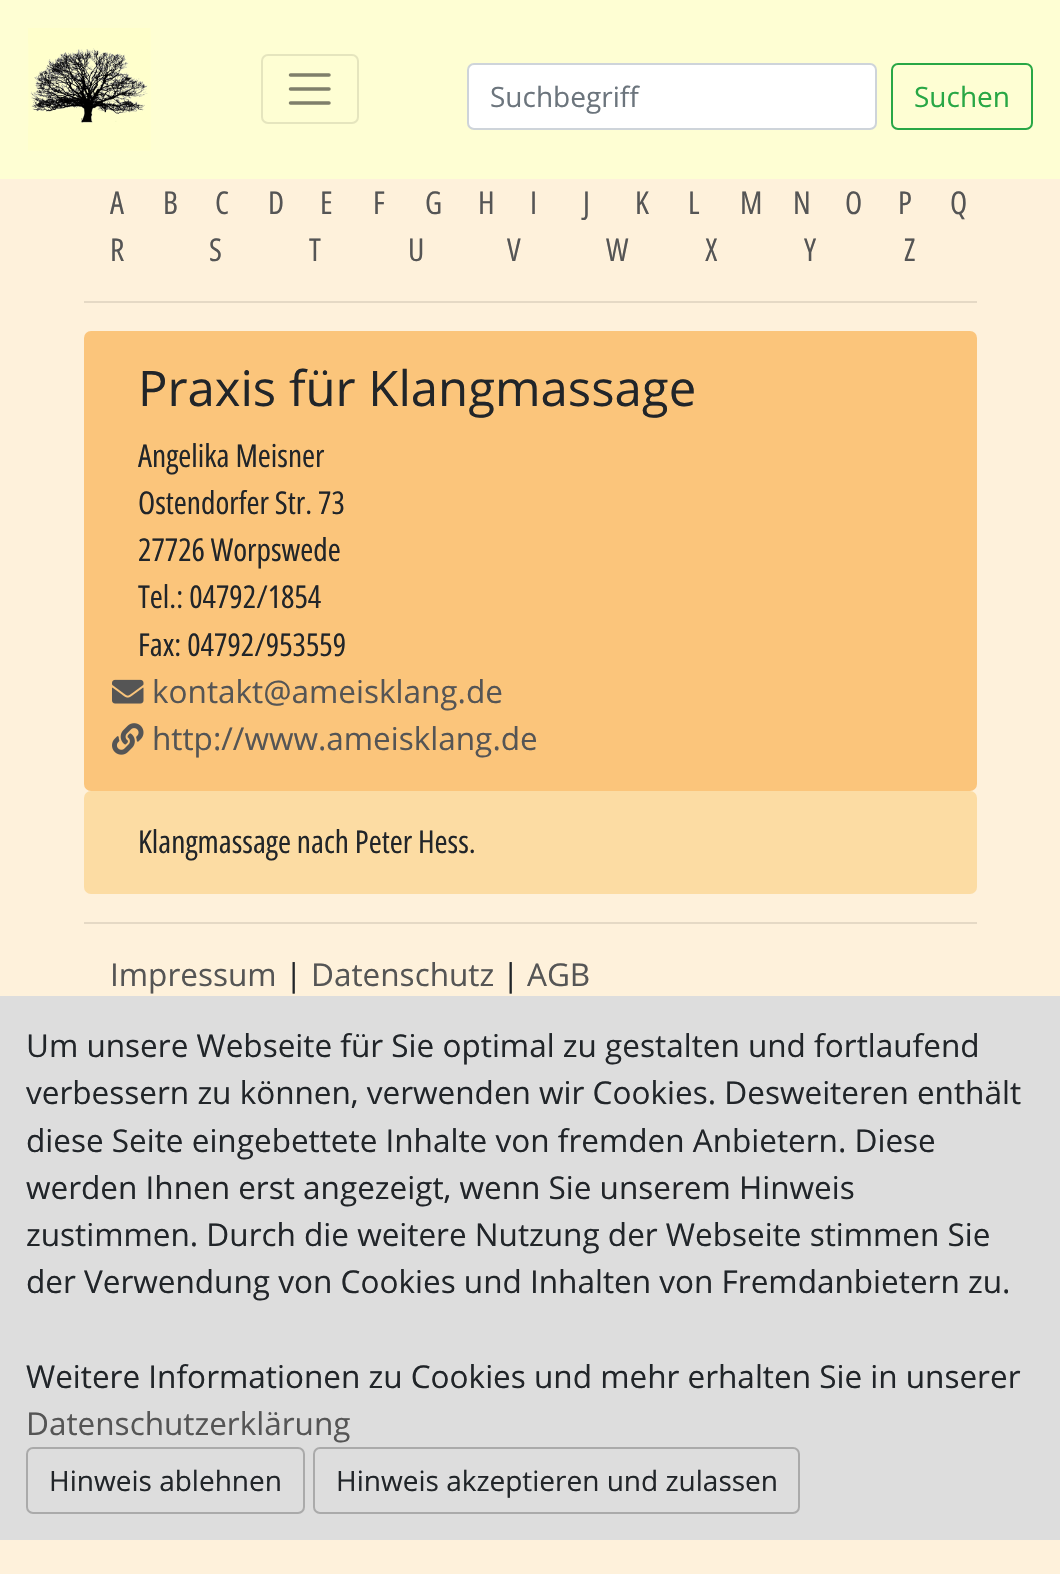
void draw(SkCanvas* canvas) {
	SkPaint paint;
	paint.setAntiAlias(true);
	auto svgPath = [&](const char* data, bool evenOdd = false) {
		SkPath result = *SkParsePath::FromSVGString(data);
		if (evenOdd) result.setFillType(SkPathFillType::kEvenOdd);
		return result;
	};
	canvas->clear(0xfffef1db);
	paint.setColor(0xfffefed3);
	canvas->drawRect(SkRect::MakeXYWH(0, 0, 1060, 179), paint);
	canvas->drawImageRect(SkImages::DeferredFromEncodedData(SkData::MakeFromFileName("img1.png")), SkRect::MakeXYWH(28, 28, 123, 123), SkSamplingOptions());
	paint.setStroke(true);
	paint.setStrokeWidth(2);
	paint.setColor(0xffe5e5be);
	canvas->drawRoundRect(SkRect::MakeXYWH(262, 55, 96, 68), 6, 6, paint);
	paint.setStrokeWidth(3.5);
	paint.setStrokeCap(SkPaint::kRound_Cap);
	paint.setColor(0xff7f7f6a);
	canvas->drawPath(svgPath("M290.5 75H329M290.5 89H329M290.5 103H329"), paint);
	paint.setStroke(false);
	paint.setColor(0xffffffff);
	canvas->drawRoundRect(SkRect::MakeXYWH(468, 64, 408, 65), 6, 6, paint);
	paint.setStroke(true);
	paint.setStrokeWidth(2);
	paint.setStrokeCap(SkPaint::kButt_Cap);
	paint.setColor(0xffced4da);
	canvas->drawRoundRect(SkRect::MakeXYWH(468, 64, 408, 65), 6, 6, paint);
	SkFont f1(fontMgr->matchFamilyStyle("Open Sans", SkFontStyle::Normal()), 28);
	f1.setSubpixel(true);
	paint.setStroke(false);
	paint.setColor(0xff6c757d);
	canvas->drawString("Suchbegriff", 490, 107, f1, paint);
	paint.setStroke(true);
	paint.setColor(0xff28a745);
	canvas->drawRoundRect(SkRect::MakeXYWH(892, 64, 140, 65), 6, 6, paint);
	paint.setStroke(false);
	canvas->drawString("Suchen", 914, 107, f1, paint);
	SkFont f2(fontMgr->matchFamilyStyle("Open Sans Condensed", SkFontStyle::Normal()), 31.5);
	f2.setSubpixel(true);
	paint.setColor(0xff555555);
	canvas->drawString("A", 110, 214, f2, paint);
	canvas->drawString("B", 163, 214, f2, paint);
	canvas->drawString("C", 215, 214, f2, paint);
	canvas->drawString("D", 268, 214, f2, paint);
	canvas->drawString("E", 320, 214, f2, paint);
	canvas->drawString("F", 373, 214, f2, paint);
	canvas->drawString("G", 425, 214, f2, paint);
	canvas->drawString("H", 478, 214, f2, paint);
	canvas->drawString("I", 530, 214, f2, paint);
	canvas->drawString("J", 583, 214, f2, paint);
	canvas->drawString("K", 635, 214, f2, paint);
	canvas->drawString("L", 688, 214, f2, paint);
	canvas->drawString("M", 740, 214, f2, paint);
	canvas->drawString("N", 793, 214, f2, paint);
	canvas->drawString("O", 845, 214, f2, paint);
	canvas->drawString("P", 898, 214, f2, paint);
	canvas->drawString("Q", 950, 214, f2, paint);
	canvas->drawString("R", 110, 261, f2, paint);
	canvas->drawString("S", 209, 261, f2, paint);
	canvas->drawString("T", 309, 261, f2, paint);
	canvas->drawString("U", 408, 261, f2, paint);
	canvas->drawString("V", 507, 261, f2, paint);
	canvas->drawString("W", 606, 261, f2, paint);
	canvas->drawString("X", 705, 261, f2, paint);
	canvas->drawString("Y", 804, 261, f2, paint);
	canvas->drawString("Z", 904, 261, f2, paint);
	paint.setColor(0xffe5d9c5);
	canvas->drawRect(SkRect::MakeXYWH(84, 301, 893, 2), paint);
	paint.setColor(0xfffbc57b);
	canvas->drawRoundRect(SkRect::MakeXYWH(84, 331, 893, 460), 7, 7, paint);
	SkFont f3(fontMgr->matchFamilyStyle("Open Sans", SkFontStyle::Normal()), 49);
	f3.setSubpixel(true);
	paint.setColor(0xff212529);
	canvas->drawString("Praxis für Klangmassage", 138, 406, f3, paint);
	canvas->drawString("Angelika Meisner", 138, 467, f2, paint);
	canvas->drawString("Ostendorfer Str. 73", 138, 514, f2, paint);
	canvas->drawString("27726 Worpswede", 138, 561, f2, paint);
	canvas->drawString("Tel.: 04792/1854", 138, 608, f2, paint);
	canvas->drawString("Fax: 04792/953559", 138, 656, f2, paint);
	canvas->drawImageRect(SkImages::DeferredFromEncodedData(SkData::MakeFromFileName("img2.png")), SkRect::MakeXYWH(112, 679, 32, 25), SkSamplingOptions());
	SkFont f4(fontMgr->matchFamilyStyle("Open Sans", SkFontStyle::Normal()), 31.5);
	f4.setSubpixel(true);
	paint.setColor(0xff555555);
	canvas->drawString("kontakt@ameisklang.de", 152, 703, f4, paint);
	canvas->drawImageRect(SkImages::DeferredFromEncodedData(SkData::MakeFromFileName("img3.png")), SkRect::MakeXYWH(112, 723, 32, 32), SkSamplingOptions());
	canvas->drawString("http://www.ameisklang.de", 152, 750, f4, paint);
	paint.setColor(0xfffcdca3);
	canvas->drawRoundRect(SkRect::MakeXYWH(84, 791, 893, 103), 7, 7, paint);
	paint.setColor(0xff212529);
	canvas->drawString("Klangmassage nach Peter Hess.", 138, 853, f2, paint);
	paint.setColor(0xffe5d9c5);
	canvas->drawRect(SkRect::MakeXYWH(84, 922, 893, 2), paint);
	paint.setColor(0xff555555);
	canvas->drawString("Impressum", 110, 986, f4, paint);
	paint.setColor(0xff212529);
	canvas->drawString("|", 285, 986, f4, paint);
	paint.setColor(0xff555555);
	canvas->drawString("Datenschutz", 311, 986, f4, paint);
	paint.setColor(0xff212529);
	canvas->drawString("|", 502, 986, f4, paint);
	paint.setColor(0xff555555);
	canvas->drawString("AGB", 527, 986, f4, paint);
	paint.setColor(0xffdddddd);
	canvas->drawRect(SkRect::MakeXYWH(0, 996, 1060, 544), paint);
	paint.setColor(0xff212529);
	canvas->drawString("Um unsere Webseite für Sie optimal zu gestalten und fortlaufend", 26, 1057, f4, paint);
	canvas->drawString("verbessern zu können, verwenden wir Cookies. Desweiteren enthält", 26, 1104, f4, paint);
	canvas->drawString("diese Seite eingebettete Inhalte von fremden Anbietern. Diese", 26, 1152, f4, paint);
	canvas->drawString("werden Ihnen erst angezeigt, wenn Sie unserem Hinweis", 26, 1199, f4, paint);
	canvas->drawString("zustimmen. Durch die weitere Nutzung der Webseite stimmen Sie", 26, 1246, f4, paint);
	canvas->drawString("der Verwendung von Cookies und Inhalten von Fremdanbietern zu.", 26, 1293, f4, paint);
	canvas->drawString("Weitere Informationen zu Cookies und mehr erhalten Sie in unserer", 26, 1388, f4, paint);
	paint.setColor(0xff555555);
	canvas->drawString("Datenschutzerklärung", 26, 1435, f4, paint);
	paint.setStroke(true);
	paint.setColor(0xffaaaaaa);
	canvas->drawRoundRect(SkRect::MakeXYWH(27, 1448, 277, 65), 6, 6, paint);
	paint.setStroke(false);
	paint.setColor(0xff212529);
	canvas->drawString("Hinweis ablehnen", 49, 1491, f1, paint);
	paint.setStroke(true);
	paint.setColor(0xffaaaaaa);
	canvas->drawRoundRect(SkRect::MakeXYWH(314, 1448, 485, 65), 6, 6, paint);
	paint.setStroke(false);
	paint.setColor(0xff212529);
	canvas->drawString("Hinweis akzeptieren und zulassen", 336, 1491, f1, paint);
}
